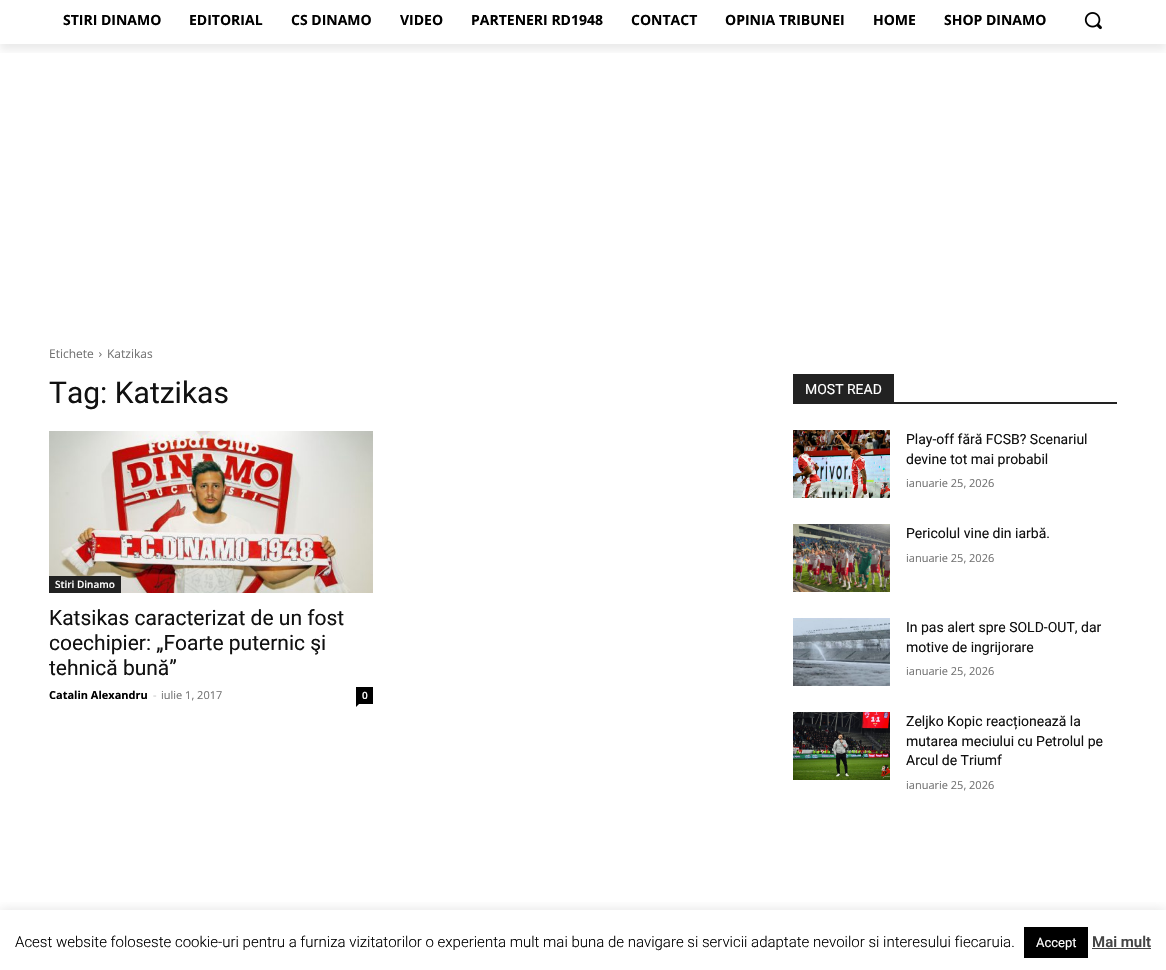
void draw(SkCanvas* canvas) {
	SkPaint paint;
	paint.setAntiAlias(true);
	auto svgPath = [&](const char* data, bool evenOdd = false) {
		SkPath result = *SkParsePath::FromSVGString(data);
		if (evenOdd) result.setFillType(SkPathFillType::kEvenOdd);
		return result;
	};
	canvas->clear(0xffffffff);
	canvas->save();
	canvas->clipRect(SkRect::MakeXYWH(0, 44, 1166, 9));
	paint.setColor(0x14000000);
	paint.setMaskFilter(SkMaskFilter::MakeBlur(kNormal_SkBlurStyle, 4));
	canvas->drawRect(SkRect::MakeXYWH(0, -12, 1166, 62), paint);
	paint.setMaskFilter(nullptr);
	canvas->restore();
	SkFont f1(fontMgr->matchFamilyStyle("Open Sans", SkFontStyle::Bold()), 14);
	f1.setSubpixel(true);
	paint.setColor(0xff000000);
	canvas->drawString("STIRI DINAMO", 63, 25, f1, paint);
	canvas->drawString("EDITORIAL", 189, 25, f1, paint);
	canvas->drawString("CS DINAMO", 291, 25, f1, paint);
	canvas->drawString("VIDEO", 400, 25, f1, paint);
	canvas->drawString("PARTENERI RD1948", 471, 25, f1, paint);
	canvas->drawString("CONTACT", 631, 25, f1, paint);
	canvas->drawString("OPINIA TRIBUNEI", 725, 25, f1, paint);
	canvas->drawString("HOME", 873, 25, f1, paint);
	canvas->drawString("SHOP DINAMO", 944, 25, f1, paint);
	canvas->drawImageRect(SkImages::DeferredFromEncodedData(SkData::MakeFromFileName("img1.png")), SkRect::MakeXYWH(1084, 12, 18, 18), SkSamplingOptions());
	SkFont f2(fontMgr->matchFamilyStyle("Open Sans", SkFontStyle::Normal()), 12);
	f2.setSubpixel(true);
	paint.setColor(0xff747474);
	canvas->drawString("Etichete", 49, 358, f2, paint);
	canvas->drawImageRect(SkImages::DeferredFromEncodedData(SkData::MakeFromFileName("img2.png")), SkRect::MakeXYWH(99, 352, 3, 5), SkSamplingOptions());
	canvas->drawString("Katzikas", 107, 358, f2, paint);
	SkFont f3(fontMgr->matchFamilyStyle("Roboto", SkFontStyle::Normal()), 30);
	f3.setSubpixel(true);
	paint.setColor(0xff111111);
	canvas->drawString("Tag: Katzikas", 49, 403, f3, paint);
	canvas->drawImageRect(SkImages::DeferredFromEncodedData(SkData::MakeFromFileName("img3.png")), SkRect::MakeXYWH(49, 431, 324, 162), SkSamplingOptions());
	paint.setColor(0xff222222);
	canvas->drawRect(SkRect::MakeXYWH(49, 576, 72, 17), paint);
	SkFont f4(fontMgr->matchFamilyStyle("Open Sans", SkFontStyle(600, SkFontStyle::kNormal_Width, SkFontStyle::kUpright_Slant)), 10);
	f4.setSubpixel(true);
	paint.setColor(0xffffffff);
	canvas->drawString("Stiri Dinamo", 55, 588, f4, paint);
	SkFont f5(fontMgr->matchFamilyStyle("Roboto", SkFontStyle::Normal()), 21);
	f5.setSubpixel(true);
	paint.setColor(0xff111111);
	canvas->drawString("Katsikas caracterizat de un fost", 49, 625, f5, paint);
	canvas->drawString("coechipier: „Foarte puternic şi", 49, 650, f5, paint);
	canvas->drawString("tehnică bună”", 49, 675, f5, paint);
	SkFont f6(fontMgr->matchFamilyStyle("Open Sans", SkFontStyle::Bold()), 11);
	f6.setSubpixel(true);
	paint.setColor(0xff000000);
	canvas->drawString("Catalin Alexandru", 49, 699, f6, paint);
	SkFont f7(fontMgr->matchFamilyStyle("Open Sans", SkFontStyle::Normal()), 11);
	f7.setSubpixel(true);
	paint.setColor(0xffcccccc);
	canvas->drawString("-", 153, 699, f7, paint);
	paint.setColor(0xff747474);
	canvas->drawString("iulie 1, 2017", 161, 699, f7, paint);
	paint.setColor(0xff000000);
	canvas->drawRect(SkRect::MakeXYWH(356, 687, 17, 17), paint);
	paint.setColor(0xffffffff);
	canvas->drawString("0", 362, 699, f4, paint);
	paint.setColor(0xff000000);
	canvas->drawPath(svgPath("M356 704H359L356 707Z"), paint);
	paint.setColor(0xff222222);
	canvas->drawRect(SkRect::MakeXYWH(793, 402, 324, 2), paint);
	canvas->drawRect(SkRect::MakeXYWH(793, 374, 101, 28), paint);
	SkFont f8(fontMgr->matchFamilyStyle("Roboto", SkFontStyle::Normal()), 14);
	f8.setSubpixel(true);
	paint.setColor(0xffffffff);
	canvas->drawString("MOST READ", 805, 394, f8, paint);
	canvas->drawImageRect(SkImages::DeferredFromEncodedData(SkData::MakeFromFileName("img4.png")), SkRect::MakeXYWH(793, 430, 97, 68), SkSamplingOptions());
	paint.setColor(0xff111111);
	canvas->drawString("Play-off fără FCSB? Scenariul", 906, 444, f8, paint);
	canvas->drawString("devine tot mai probabil", 906, 464, f8, paint);
	paint.setColor(0xff747474);
	canvas->drawString("ianuarie 25, 2026", 906, 487, f7, paint);
	canvas->drawImageRect(SkImages::DeferredFromEncodedData(SkData::MakeFromFileName("img5.png")), SkRect::MakeXYWH(793, 524, 97, 68), SkSamplingOptions());
	paint.setColor(0xff111111);
	canvas->drawString("Pericolul vine din iarbă.", 906, 538, f8, paint);
	paint.setColor(0xff747474);
	canvas->drawString("ianuarie 25, 2026", 906, 562, f7, paint);
	canvas->drawImageRect(SkImages::DeferredFromEncodedData(SkData::MakeFromFileName("img6.png")), SkRect::MakeXYWH(793, 618, 97, 68), SkSamplingOptions());
	paint.setColor(0xff111111);
	canvas->drawString("In pas alert spre SOLD-OUT, dar", 906, 632, f8, paint);
	canvas->drawString("motive de ingrijorare", 906, 652, f8, paint);
	paint.setColor(0xff747474);
	canvas->drawString("ianuarie 25, 2026", 906, 675, f7, paint);
	canvas->drawImageRect(SkImages::DeferredFromEncodedData(SkData::MakeFromFileName("img7.png")), SkRect::MakeXYWH(793, 712, 97, 68), SkSamplingOptions());
	paint.setColor(0xff111111);
	canvas->drawString("Zeljko Kopic reacționează la", 906, 726, f8, paint);
	canvas->drawString("mutarea meciului cu Petrolul pe", 906, 746, f8, paint);
	canvas->drawString("Arcul de Triumf", 906, 765, f8, paint);
	paint.setColor(0xff747474);
	canvas->drawString("ianuarie 25, 2026", 906, 789, f7, paint);
	canvas->save();
	canvas->clipRect(SkRect::MakeXYWH(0, 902, 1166, 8));
	paint.setColor(0x4dacabab);
	paint.setMaskFilter(SkMaskFilter::MakeBlur(kNormal_SkBlurStyle, 5));
	canvas->drawRect(SkRect::MakeXYWH(0, 909, 1166, 60), paint);
	paint.setMaskFilter(nullptr);
	canvas->restore();
	SkFont f9(fontMgr->matchFamilyStyle("Roboto", SkFontStyle(300, SkFontStyle::kNormal_Width, SkFontStyle::kUpright_Slant)), 15);
	f9.setSubpixel(true);
	paint.setColor(0xff000000);
	canvas->drawString("Acest website foloseste cookie-uri pentru a furniza vizitatorilor o experienta mult mai buna de navigare si servicii adaptate nevoilor si interesului fiecaruia.", 15, 947, f9, paint);
	canvas->drawRect(SkRect::MakeXYWH(1024, 927, 64, 31), paint);
	SkFont f10(fontMgr->matchFamilyStyle("Roboto", SkFontStyle::Normal()), 13);
	f10.setSubpixel(true);
	paint.setColor(0xffffffff);
	canvas->drawString("Accept", 1036, 947, f10, paint);
	SkFont f11(fontMgr->matchFamilyStyle("Roboto", SkFontStyle(600, SkFontStyle::kNormal_Width, SkFontStyle::kUpright_Slant)), 15);
	f11.setSubpixel(true);
	paint.setColor(0xff444444);
	canvas->drawString("Mai mult", 1092, 947, f11, paint);
	canvas->drawRect(SkRect::MakeXYWH(1092, 948, 59, 1), paint);
}
